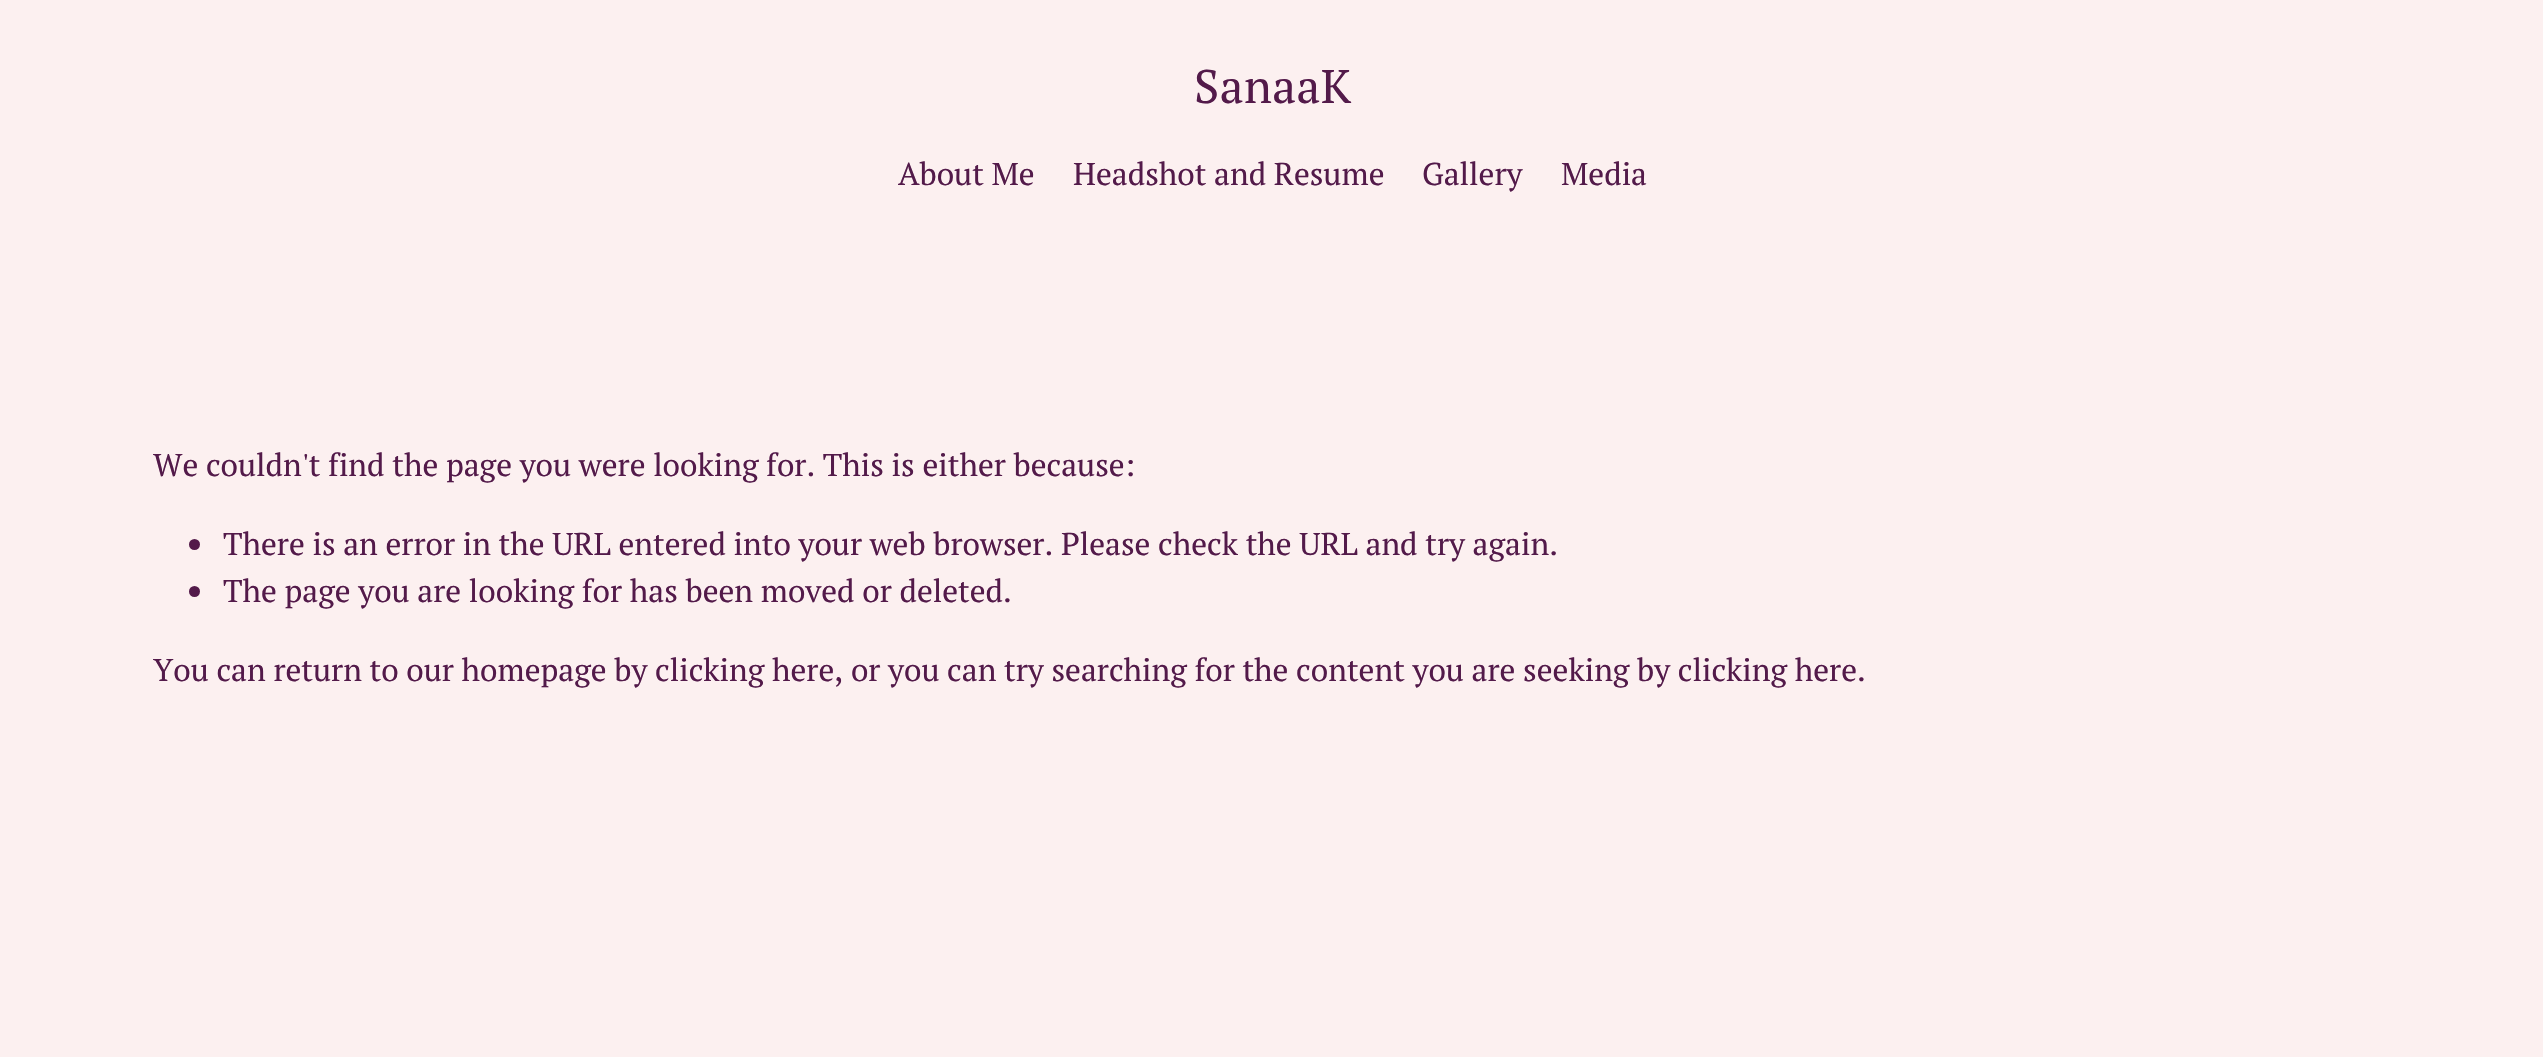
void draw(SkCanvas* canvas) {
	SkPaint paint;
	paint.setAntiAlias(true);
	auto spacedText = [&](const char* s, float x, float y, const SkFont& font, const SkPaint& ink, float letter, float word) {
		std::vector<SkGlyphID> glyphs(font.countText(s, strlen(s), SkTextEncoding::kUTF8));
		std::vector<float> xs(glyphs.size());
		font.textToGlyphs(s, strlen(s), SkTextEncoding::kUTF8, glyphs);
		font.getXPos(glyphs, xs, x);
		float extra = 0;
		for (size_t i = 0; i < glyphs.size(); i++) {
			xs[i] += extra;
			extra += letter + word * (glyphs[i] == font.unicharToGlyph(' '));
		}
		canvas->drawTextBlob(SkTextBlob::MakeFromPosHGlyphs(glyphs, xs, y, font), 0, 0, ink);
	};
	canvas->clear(0xfffcf0f0);
	SkFont f1(fontMgr->matchFamilyStyle("PT Serif", SkFontStyle::Normal()), 47);
	f1.setSubpixel(true);
	paint.setColor(0xff531a4a);
	spacedText("SanaaK", 1194, 103, f1, paint, 0.5, 0);
	SkFont f2(fontMgr->matchFamilyStyle("PT Serif", SkFontStyle::Normal()), 31.5);
	f2.setSubpixel(true);
	canvas->drawString("About Me", 898, 185, f2, paint);
	canvas->drawString("Headshot and Resume", 1073, 185, f2, paint);
	canvas->drawString("Gallery", 1422, 185, f2, paint);
	canvas->drawString("Media", 1561, 185, f2, paint);
	canvas->drawString("We couldn't find the page you were looking for. This is either because:", 153, 476, f2, paint);
	canvas->drawCircle(194.5, 544.5, 5.5, paint);
	canvas->drawString("There is an error in the URL entered into your web browser. Please check the URL and try again.", 223, 555, f2, paint);
	canvas->drawCircle(194.5, 591.5, 5.5, paint);
	canvas->drawString("The page you are looking for has been moved or deleted.", 223, 602, f2, paint);
	canvas->drawString("You can return to our homepage by clicking here, or you can try searching for the content you are seeking by clicking here.", 153, 681, f2, paint);
}
